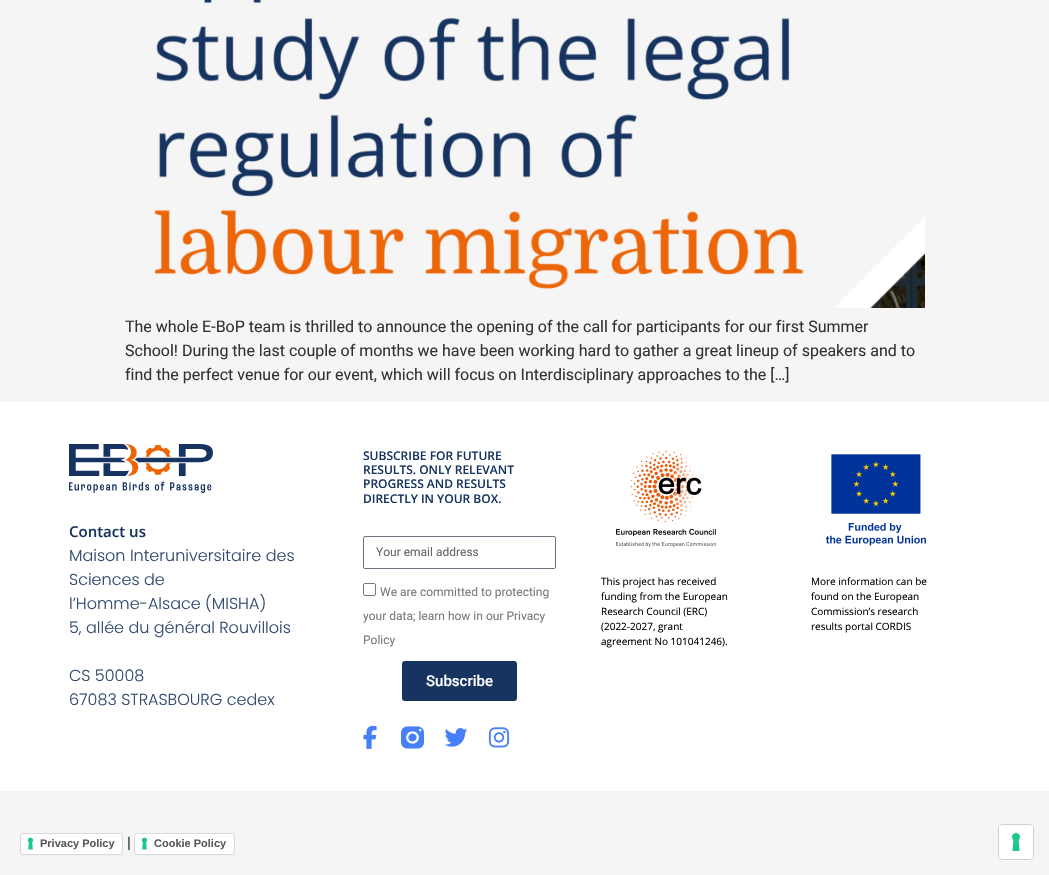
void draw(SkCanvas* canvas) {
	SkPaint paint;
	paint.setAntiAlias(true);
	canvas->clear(0xfff5f5f5);
	canvas->drawImageRect(SkImages::DeferredFromEncodedData(SkData::MakeFromFileName("img1.png")), SkRect::MakeXYWH(154, 0, 771, 308), SkSamplingOptions());
	SkFont f1(fontMgr->matchFamilyStyle("Roboto", SkFontStyle::Normal()), 16);
	f1.setSubpixel(true);
	paint.setColor(0xff333333);
	canvas->drawString("The whole E-BoP team is thrilled to announce the opening of the call for participants for our first Summer", 125, 332, f1, paint);
	canvas->drawString("School! During the last couple of months we have been working hard to gather a great lineup of speakers and to", 125, 356, f1, paint);
	canvas->drawString("find the perfect venue for our event, which will focus on Interdisciplinary approaches to the […]", 125, 380, f1, paint);
	paint.setColor(0xffffffff);
	canvas->drawRect(SkRect::MakeXYWH(0, 402, 1049, 389), paint);
	canvas->drawImageRect(SkImages::DeferredFromEncodedData(SkData::MakeFromFileName("img2.png")), SkRect::MakeXYWH(69, 444, 144, 49), SkSamplingOptions());
	SkFont f2(fontMgr->matchFamilyStyle("Open Sans", SkFontStyle(600, SkFontStyle::kNormal_Width, SkFontStyle::kUpright_Slant)), 15);
	f2.setSubpixel(true);
	paint.setColor(0xff16345f);
	canvas->drawString("Contact us", 69, 537, f2, paint);
	SkFont f3(fontMgr->matchFamilyStyle("Poppins", SkFontStyle(300, SkFontStyle::kNormal_Width, SkFontStyle::kUpright_Slant)), 16);
	f3.setSubpixel(true);
	paint.setColor(0xff324a6d);
	canvas->drawString("Maison Interuniversitaire des", 69, 561, f3, paint);
	canvas->drawString("Sciences de", 69, 585, f3, paint);
	canvas->drawString("l’Homme-Alsace (MISHA)", 69, 609, f3, paint);
	canvas->drawString("5, allée du général Rouvillois", 69, 633, f3, paint);
	canvas->drawString("CS 50008", 69, 681, f3, paint);
	canvas->drawString("67083 STRASBOURG cedex", 69, 705, f3, paint);
	SkFont f4(fontMgr->matchFamilyStyle("Open Sans", SkFontStyle(600, SkFontStyle::kNormal_Width, SkFontStyle::kUpright_Slant)), 12);
	f4.setSubpixel(true);
	paint.setColor(0xff16345f);
	canvas->drawString("SUBSCRIBE FOR FUTURE", 363, 460, f4, paint);
	canvas->drawString("RESULTS. ONLY RELEVANT", 363, 474, f4, paint);
	canvas->drawString("PROGRESS AND RESULTS", 363, 488, f4, paint);
	canvas->drawString("DIRECTLY IN YOUR BOX.", 363, 503, f4, paint);
	paint.setStroke(true);
	paint.setStrokeWidth(1);
	paint.setColor(0xff69727d);
	canvas->drawRoundRect(SkRect::MakeXYWH(363.5, 536.5, 192, 32), 1.5, 1.5, paint);
	SkFont f5(fontMgr->matchFamilyStyle("Roboto", SkFontStyle::Normal()), 12);
	f5.setSubpixel(true);
	paint.setStroke(false);
	paint.setColor(0xff666666);
	canvas->drawString("Your email address", 376, 556, f5, paint);
	paint.setStroke(true);
	paint.setColor(0xff767676);
	canvas->drawRoundRect(SkRect::MakeXYWH(363.5, 583.5, 12, 12), 1.5, 1.5, paint);
	paint.setStroke(false);
	paint.setColor(0xff7a7a7a);
	canvas->drawString("We are committed to protecting", 380, 596, f5, paint);
	canvas->drawString("your data; learn how in our Privacy", 363, 620, f5, paint);
	canvas->drawString("Policy", 363, 644, f5, paint);
	paint.setColor(0xff16345f);
	canvas->drawRoundRect(SkRect::MakeXYWH(402, 661, 115, 40), 3, 3, paint);
	SkFont f6(fontMgr->matchFamilyStyle("Roboto", SkFontStyle(500, SkFontStyle::kNormal_Width, SkFontStyle::kUpright_Slant)), 15);
	f6.setSubpixel(true);
	paint.setColor(0xffffffff);
	canvas->drawString("Subscribe", 426, 686, f6, paint);
	canvas->drawImageRect(SkImages::DeferredFromEncodedData(SkData::MakeFromFileName("img3.png")), SkRect::MakeXYWH(363, 725, 14, 24), SkSamplingOptions());
	canvas->drawImageRect(SkImages::DeferredFromEncodedData(SkData::MakeFromFileName("img4.png")), SkRect::MakeXYWH(401, 726, 23, 23), SkSamplingOptions());
	canvas->drawImageRect(SkImages::DeferredFromEncodedData(SkData::MakeFromFileName("img5.png")), SkRect::MakeXYWH(444, 728, 24, 19), SkSamplingOptions());
	canvas->drawImageRect(SkImages::DeferredFromEncodedData(SkData::MakeFromFileName("img6.png")), SkRect::MakeXYWH(488, 727, 22, 21), SkSamplingOptions());
	canvas->drawImageRect(SkImages::DeferredFromEncodedData(SkData::MakeFromFileName("img7.png")), SkRect::MakeXYWH(616, 450, 100, 98), SkSamplingOptions());
	SkFont f7(fontMgr->matchFamilyStyle("Open Sans", SkFontStyle::Normal()), 10);
	f7.setSubpixel(true);
	paint.setColor(0xff000000);
	canvas->drawString("This project has received", 601, 585, f7, paint);
	canvas->drawString("funding from the European", 601, 600, f7, paint);
	canvas->drawString("Research Council (ERC)", 601, 615, f7, paint);
	canvas->drawString("(2022-2027, grant", 601, 630, f7, paint);
	canvas->drawString("agreement No 101041246).", 601, 645, f7, paint);
	canvas->drawImageRect(SkImages::DeferredFromEncodedData(SkData::MakeFromFileName("img8.png")), SkRect::MakeXYWH(826, 454, 100, 92), SkSamplingOptions());
	canvas->drawString("More information can be", 811, 585, f7, paint);
	canvas->drawString("found on the European", 811, 600, f7, paint);
	canvas->drawString("Commission’s research", 811, 615, f7, paint);
	canvas->drawString("results portal CORDIS", 811, 630, f7, paint);
	paint.setColor(0x26000000);
	paint.setMaskFilter(SkMaskFilter::MakeBlur(kNormal_SkBlurStyle, 0.5));
	canvas->drawRoundRect(SkRect::MakeXYWH(21, 835, 101, 20), 2, 2, paint);
	paint.setMaskFilter(nullptr);
	paint.setColor(0xffffffff);
	canvas->drawRoundRect(SkRect::MakeXYWH(20, 833, 103, 22), 3, 3, paint);
	canvas->drawImageRect(SkImages::DeferredFromEncodedData(SkData::MakeFromFileName("img9.png")), SkRect::MakeXYWH(27, 837, 7, 13), SkSamplingOptions());
	paint.setStroke(true);
	paint.setColor(0x26000000);
	canvas->drawRoundRect(SkRect::MakeXYWH(20.5, 833.5, 102, 21), 2.5, 2.5, paint);
	SkFont f8(fontMgr->matchFamilyStyle("Liberation Sans", SkFontStyle::Bold()), 11);
	f8.setSubpixel(true);
	paint.setStroke(false);
	paint.setColor(0xff595959);
	canvas->drawString("Privacy Policy", 40, 847, f8, paint);
	paint.setColor(0xff333333);
	canvas->drawString("|", 127, 848, f1, paint);
	paint.setColor(0x26000000);
	paint.setMaskFilter(SkMaskFilter::MakeBlur(kNormal_SkBlurStyle, 0.5));
	canvas->drawRoundRect(SkRect::MakeXYWH(135, 835, 99, 20), 2, 2, paint);
	paint.setMaskFilter(nullptr);
	paint.setColor(0xffffffff);
	canvas->drawRoundRect(SkRect::MakeXYWH(134, 833, 101, 22), 3, 3, paint);
	canvas->drawImageRect(SkImages::DeferredFromEncodedData(SkData::MakeFromFileName("img9.png")), SkRect::MakeXYWH(141, 837, 7, 13), SkSamplingOptions());
	paint.setStroke(true);
	paint.setColor(0x26000000);
	canvas->drawRoundRect(SkRect::MakeXYWH(134.5, 833.5, 100, 21), 2.5, 2.5, paint);
	paint.setStroke(false);
	paint.setColor(0xff595959);
	canvas->drawString("Cookie Policy", 154, 847, f8, paint);
	paint.setStroke(true);
	paint.setColor(0xffd0d0d0);
	canvas->drawRoundRect(SkRect::MakeXYWH(998.5, 824.5, 35, 35), 4.5, 4.5, paint);
	paint.setStroke(false);
	paint.setColor(0xffffffff);
	canvas->drawRoundRect(SkRect::MakeXYWH(999, 825, 34, 34), 4, 4, paint);
	canvas->drawImageRect(SkImages::DeferredFromEncodedData(SkData::MakeFromFileName("img10.png")), SkRect::MakeXYWH(1012, 833, 8, 18), SkSamplingOptions());
}
